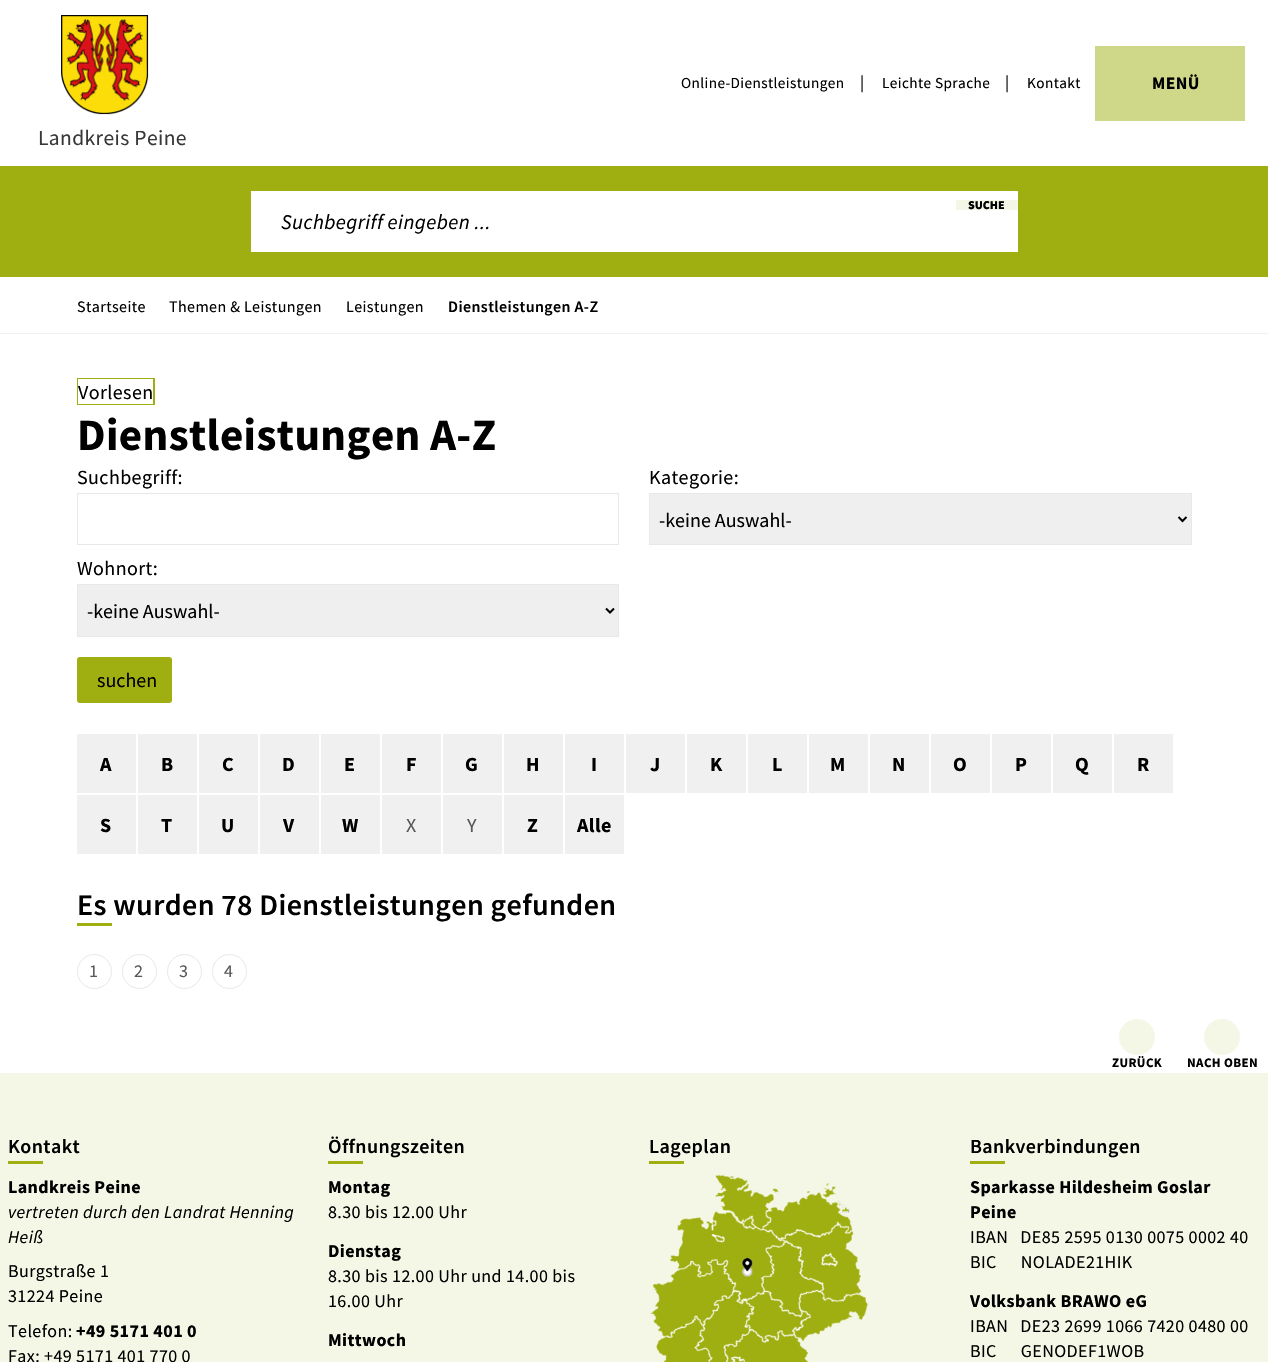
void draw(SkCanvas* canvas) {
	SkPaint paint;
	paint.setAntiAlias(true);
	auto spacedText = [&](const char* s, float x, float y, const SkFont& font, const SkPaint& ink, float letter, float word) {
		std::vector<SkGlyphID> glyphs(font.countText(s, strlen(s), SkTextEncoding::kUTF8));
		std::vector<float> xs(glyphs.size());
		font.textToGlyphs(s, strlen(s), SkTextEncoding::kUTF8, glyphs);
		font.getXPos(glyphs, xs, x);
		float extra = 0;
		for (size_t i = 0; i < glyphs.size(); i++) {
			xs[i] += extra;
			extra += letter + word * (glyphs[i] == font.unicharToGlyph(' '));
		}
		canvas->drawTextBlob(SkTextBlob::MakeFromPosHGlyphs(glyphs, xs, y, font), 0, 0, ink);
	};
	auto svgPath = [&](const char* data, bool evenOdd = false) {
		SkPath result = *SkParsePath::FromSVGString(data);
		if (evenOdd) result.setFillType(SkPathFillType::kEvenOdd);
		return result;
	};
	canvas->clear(0xffffffff);
	SkFont f1(fontMgr->matchFamilyStyle("Source Sans Pro", SkFontStyle::Normal()), 15.25);
	f1.setSubpixel(true);
	paint.setColor(0xff000000);
	spacedText("Online-Dienstleistungen", 681, 88, f1, paint, 0.4, 0);
	SkFont f2(fontMgr->matchFamilyStyle("Source Sans Pro", SkFontStyle::Normal()), 17);
	f2.setSubpixel(true);
	spacedText("|", 860, 88, f2, paint, 0.4, 0);
	spacedText("Leichte Sprache", 882, 88, f1, paint, 0.4, 0);
	spacedText("|", 1005, 88, f2, paint, 0.4, 0);
	spacedText("Kontakt", 1027, 88, f1, paint, 0.4, 0);
	paint.setColor(0xffcfd788);
	canvas->drawRect(SkRect::MakeXYWH(1095, 46, 150, 75), paint);
	SkFont f3(fontMgr->matchFamilyStyle("Source Sans Pro", SkFontStyle::Bold()), 17.5);
	f3.setSubpixel(true);
	paint.setColor(0xff000000);
	spacedText("MENÜ", 1152, 89, f3, paint, 0.4, 0);
	canvas->drawImageRect(SkImages::DeferredFromEncodedData(SkData::MakeFromFileName("img1.png")), SkRect::MakeXYWH(61, 15, 88, 100), SkSamplingOptions());
	SkFont f4(fontMgr->matchFamilyStyle("Source Sans Pro", SkFontStyle::Normal()), 21.5);
	f4.setSubpixel(true);
	paint.setColor(0xff383838);
	spacedText("Landkreis Peine", 38, 145, f4, paint, 0.4, 0);
	paint.setColor(0xff9faf12);
	canvas->drawRect(SkRect::MakeXYWH(0, 166, 1268, 111), paint);
	paint.setColor(0xffffffff);
	canvas->drawRect(SkRect::MakeXYWH(251, 191, 767, 61), paint);
	paint.setColor(0xfff5f7e6);
	canvas->drawRect(SkRect::MakeXYWH(956, 200, 62, 10), paint);
	SkFont f5(fontMgr->matchFamilyStyle("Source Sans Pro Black", SkFontStyle(900, SkFontStyle::kNormal_Width, SkFontStyle::kUpright_Slant)), 12);
	f5.setSubpixel(true);
	paint.setColor(0xff000000);
	canvas->drawString("SUCHE", 968, 209, f5, paint);
	SkFont f6(fontMgr->matchFamilyStyle("Source Sans Pro", SkFontStyle::Italic()), 20.9);
	f6.setSubpixel(true);
	spacedText("Suchbegriff eingeben ...", 281, 229, f6, paint, 0.4, 0);
	paint.setColor(0xfff0f0f0);
	canvas->drawRect(SkRect::MakeXYWH(0, 333, 1268, 1), paint);
	SkFont f7(fontMgr->matchFamilyStyle("Source Sans Pro", SkFontStyle::Normal()), 16);
	f7.setSubpixel(true);
	paint.setColor(0xff000000);
	spacedText("Startseite", 77, 312, f7, paint, 0.4, 0);
	spacedText("Themen & Leistungen", 169, 312, f7, paint, 0.4, 0);
	spacedText("Leistungen", 346, 312, f7, paint, 0.4, 0);
	SkFont f8(fontMgr->matchFamilyStyle("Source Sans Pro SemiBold", SkFontStyle(600, SkFontStyle::kNormal_Width, SkFontStyle::kUpright_Slant)), 16);
	f8.setSubpixel(true);
	spacedText("Dienstleistungen A-Z", 448, 312, f8, paint, 0.4, 0);
	paint.setColor(0xff9faf12);
	canvas->drawRect(SkRect::MakeXYWH(77, 378, 78, 1), paint);
	canvas->drawRect(SkRect::MakeXYWH(77, 404, 76, 1), paint);
	canvas->drawRect(SkRect::MakeXYWH(77, 378, 1, 27), paint);
	SkFont f9(fontMgr->matchFamilyStyle("Source Sans Pro", SkFontStyle::Normal()), 20);
	f9.setSubpixel(true);
	paint.setColor(0xff000000);
	spacedText("Vorlesen", 78, 399, f9, paint, 0.4, 0);
	paint.setColor(0xff9faf12);
	canvas->drawRect(SkRect::MakeXYWH(154, 378, 1, 27), paint);
	canvas->drawRect(SkRect::MakeXYWH(153, 404, 2, 1), paint);
	canvas->drawRect(SkRect::MakeXYWH(153, 379, 1, 25), paint);
	SkFont f10(fontMgr->matchFamilyStyle("Source Sans Pro", SkFontStyle::Bold()), 45);
	f10.setSubpixel(true);
	paint.setColor(0xff000000);
	spacedText("Dienstleistungen A-Z", 77, 450, f10, paint, 0.4, 0);
	spacedText("Suchbegriff:", 77, 484, f9, paint, 0.4, 0);
	paint.setStroke(true);
	paint.setStrokeWidth(1);
	paint.setColor(0xffe8e8e8);
	canvas->drawRect(SkRect::MakeXYWH(77.5, 493.5, 541, 51), paint);
	paint.setStroke(false);
	paint.setColor(0xff000000);
	spacedText("Kategorie:", 649, 484, f9, paint, 0.4, 0);
	paint.setColor(0xffefefef);
	canvas->drawRect(SkRect::MakeXYWH(649.5, 493.5, 542, 51), paint);
	paint.setStroke(true);
	paint.setColor(0xffe8e8e8);
	canvas->drawRect(SkRect::MakeXYWH(649.5, 493.5, 542, 51), paint);
	paint.setStrokeWidth(2);
	paint.setColor(0xff000000);
	canvas->drawPath(svgPath("M1178.5 517L1182.5 521L1186.5 517"), paint);
	paint.setStroke(false);
	canvas->drawString("-keine Auswahl-", 659, 527, f9, paint);
	spacedText("Wohnort:", 77, 575, f9, paint, 0.4, 0);
	paint.setColor(0xffefefef);
	canvas->drawRect(SkRect::MakeXYWH(77.5, 584.5, 541, 52), paint);
	paint.setStroke(true);
	paint.setStrokeWidth(1);
	paint.setColor(0xffe8e8e8);
	canvas->drawRect(SkRect::MakeXYWH(77.5, 584.5, 541, 52), paint);
	paint.setStrokeWidth(2);
	paint.setColor(0xff000000);
	canvas->drawPath(svgPath("M606 608.5L610 612.5L614 608.5"), paint);
	paint.setStroke(false);
	canvas->drawString("-keine Auswahl-", 87, 618, f9, paint);
	paint.setColor(0xff9faf12);
	canvas->drawRoundRect(SkRect::MakeXYWH(77, 657, 95, 46), 3, 3, paint);
	paint.setColor(0xff000000);
	canvas->drawString("suchen", 97, 687, f9, paint);
	paint.setColor(0xfff0f0f0);
	canvas->drawRect(SkRect::MakeXYWH(77, 734, 59, 59), paint);
	SkFont f11(fontMgr->matchFamilyStyle("Source Sans Pro", SkFontStyle::Bold()), 20);
	f11.setSubpixel(true);
	paint.setColor(0xff000000);
	spacedText("A", 100, 771, f11, paint, 0.4, 0);
	paint.setColor(0xfff0f0f0);
	canvas->drawRect(SkRect::MakeXYWH(138, 734, 59, 59), paint);
	paint.setColor(0xff000000);
	spacedText("B", 161, 771, f11, paint, 0.4, 0);
	paint.setColor(0xfff0f0f0);
	canvas->drawRect(SkRect::MakeXYWH(199, 734, 59, 59), paint);
	paint.setColor(0xff000000);
	spacedText("C", 222, 771, f11, paint, 0.4, 0);
	paint.setColor(0xfff0f0f0);
	canvas->drawRect(SkRect::MakeXYWH(260, 734, 59, 59), paint);
	paint.setColor(0xff000000);
	spacedText("D", 282, 771, f11, paint, 0.4, 0);
	paint.setColor(0xfff0f0f0);
	canvas->drawRect(SkRect::MakeXYWH(321, 734, 59, 59), paint);
	paint.setColor(0xff000000);
	spacedText("E", 344, 771, f11, paint, 0.4, 0);
	paint.setColor(0xfff0f0f0);
	canvas->drawRect(SkRect::MakeXYWH(382, 734, 59, 59), paint);
	paint.setColor(0xff000000);
	spacedText("F", 406, 771, f11, paint, 0.4, 0);
	paint.setColor(0xfff0f0f0);
	canvas->drawRect(SkRect::MakeXYWH(443, 734, 59, 59), paint);
	paint.setColor(0xff000000);
	spacedText("G", 465, 771, f11, paint, 0.4, 0);
	paint.setColor(0xfff0f0f0);
	canvas->drawRect(SkRect::MakeXYWH(504, 734, 59, 59), paint);
	paint.setColor(0xff000000);
	spacedText("H", 526, 771, f11, paint, 0.4, 0);
	paint.setColor(0xfff0f0f0);
	canvas->drawRect(SkRect::MakeXYWH(565, 734, 59, 59), paint);
	paint.setColor(0xff000000);
	spacedText("I", 591, 771, f11, paint, 0.4, 0);
	paint.setColor(0xfff0f0f0);
	canvas->drawRect(SkRect::MakeXYWH(626, 734, 59, 59), paint);
	paint.setColor(0xff000000);
	spacedText("J", 650, 771, f11, paint, 0.4, 0);
	paint.setColor(0xfff0f0f0);
	canvas->drawRect(SkRect::MakeXYWH(687, 734, 59, 59), paint);
	paint.setColor(0xff000000);
	spacedText("K", 710, 771, f11, paint, 0.4, 0);
	paint.setColor(0xfff0f0f0);
	canvas->drawRect(SkRect::MakeXYWH(748, 734, 59, 59), paint);
	paint.setColor(0xff000000);
	spacedText("L", 772, 771, f11, paint, 0.4, 0);
	paint.setColor(0xfff0f0f0);
	canvas->drawRect(SkRect::MakeXYWH(809, 734, 59, 59), paint);
	paint.setColor(0xff000000);
	spacedText("M", 830, 771, f11, paint, 0.4, 0);
	paint.setColor(0xfff0f0f0);
	canvas->drawRect(SkRect::MakeXYWH(870, 734, 59, 59), paint);
	paint.setColor(0xff000000);
	spacedText("N", 892, 771, f11, paint, 0.4, 0);
	paint.setColor(0xfff0f0f0);
	canvas->drawRect(SkRect::MakeXYWH(931, 734, 59, 59), paint);
	paint.setColor(0xff000000);
	spacedText("O", 953, 771, f11, paint, 0.4, 0);
	paint.setColor(0xfff0f0f0);
	canvas->drawRect(SkRect::MakeXYWH(992, 734, 59, 59), paint);
	paint.setColor(0xff000000);
	spacedText("P", 1015, 771, f11, paint, 0.4, 0);
	paint.setColor(0xfff0f0f0);
	canvas->drawRect(SkRect::MakeXYWH(1053, 734, 59, 59), paint);
	paint.setColor(0xff000000);
	spacedText("Q", 1075, 771, f11, paint, 0.4, 0);
	paint.setColor(0xfff0f0f0);
	canvas->drawRect(SkRect::MakeXYWH(1114, 734, 59, 59), paint);
	paint.setColor(0xff000000);
	spacedText("R", 1137, 771, f11, paint, 0.4, 0);
	paint.setColor(0xfff0f0f0);
	canvas->drawRect(SkRect::MakeXYWH(77, 795, 59, 59), paint);
	paint.setColor(0xff000000);
	spacedText("S", 100, 832, f11, paint, 0.4, 0);
	paint.setColor(0xfff0f0f0);
	canvas->drawRect(SkRect::MakeXYWH(138, 795, 59, 59), paint);
	paint.setColor(0xff000000);
	spacedText("T", 161, 832, f11, paint, 0.4, 0);
	paint.setColor(0xfff0f0f0);
	canvas->drawRect(SkRect::MakeXYWH(199, 795, 59, 59), paint);
	paint.setColor(0xff000000);
	spacedText("U", 221, 832, f11, paint, 0.4, 0);
	paint.setColor(0xfff0f0f0);
	canvas->drawRect(SkRect::MakeXYWH(260, 795, 59, 59), paint);
	paint.setColor(0xff000000);
	spacedText("V", 283, 832, f11, paint, 0.4, 0);
	paint.setColor(0xfff0f0f0);
	canvas->drawRect(SkRect::MakeXYWH(321, 795, 59, 59), paint);
	paint.setColor(0xff000000);
	spacedText("W", 342, 832, f11, paint, 0.4, 0);
	paint.setColor(0xfff0f0f0);
	canvas->drawRect(SkRect::MakeXYWH(382, 795, 59, 59), paint);
	paint.setColor(0xff585858);
	spacedText("X", 406, 832, f9, paint, 0.4, 0);
	paint.setColor(0xfff0f0f0);
	canvas->drawRect(SkRect::MakeXYWH(443, 795, 59, 59), paint);
	paint.setColor(0xff585858);
	spacedText("Y", 467, 832, f9, paint, 0.4, 0);
	paint.setColor(0xfff0f0f0);
	canvas->drawRect(SkRect::MakeXYWH(504, 795, 59, 59), paint);
	paint.setColor(0xff000000);
	spacedText("Z", 527, 832, f11, paint, 0.4, 0);
	paint.setColor(0xfff0f0f0);
	canvas->drawRect(SkRect::MakeXYWH(565, 795, 59, 59), paint);
	paint.setColor(0xff000000);
	spacedText("Alle", 577, 832, f11, paint, 0.4, 0);
	SkFont f12(fontMgr->matchFamilyStyle("Source Sans Pro SemiBold", SkFontStyle(600, SkFontStyle::kNormal_Width, SkFontStyle::kUpright_Slant)), 30);
	f12.setSubpixel(true);
	spacedText("Es wurden 78 Dienstleistungen gefunden", 77, 915, f12, paint, 0.4, 0);
	paint.setColor(0xff9faf12);
	canvas->drawRect(SkRect::MakeXYWH(77, 923, 35, 3), paint);
	paint.setStroke(true);
	paint.setStrokeWidth(1);
	paint.setColor(0xffe8e8e8);
	canvas->drawCircle(94.5, 971.5, 17, paint);
	SkFont f13(fontMgr->matchFamilyStyle("Source Sans Pro", SkFontStyle::Normal()), 18);
	f13.setSubpixel(true);
	paint.setStroke(false);
	paint.setColor(0xff585858);
	spacedText("1", 89, 977, f13, paint, 0.4, 0);
	paint.setStroke(true);
	paint.setColor(0xffe8e8e8);
	canvas->drawCircle(139.5, 971.5, 17, paint);
	paint.setStroke(false);
	paint.setColor(0xff585858);
	spacedText("2", 134, 977, f13, paint, 0.4, 0);
	paint.setStroke(true);
	paint.setColor(0xffe8e8e8);
	canvas->drawCircle(184.5, 971.5, 17, paint);
	paint.setStroke(false);
	paint.setColor(0xff585858);
	spacedText("3", 179, 977, f13, paint, 0.4, 0);
	paint.setStroke(true);
	paint.setColor(0xffe8e8e8);
	canvas->drawCircle(229.5, 971.5, 17, paint);
	paint.setStroke(false);
	paint.setColor(0xff585858);
	spacedText("4", 224, 977, f13, paint, 0.4, 0);
	paint.setColor(0xfff5f7e6);
	canvas->drawCircle(1137, 1037, 18, paint);
	SkFont f14(fontMgr->matchFamilyStyle("Source Sans Pro", SkFontStyle::Bold()), 13);
	f14.setSubpixel(true);
	paint.setColor(0xff000000);
	spacedText("ZURÜCK", 1112, 1067, f14, paint, 0.4, 0);
	paint.setColor(0xfff5f7e6);
	canvas->drawCircle(1222, 1037, 18, paint);
	paint.setColor(0xff000000);
	spacedText("NACH OBEN", 1187, 1067, f14, paint, 0.4, 0);
	paint.setColor(0xfff5f7e6);
	canvas->drawRect(SkRect::MakeXYWH(0, 1073, 1268, 289), paint);
	SkFont f15(fontMgr->matchFamilyStyle("Source Sans Pro SemiBold", SkFontStyle(600, SkFontStyle::kNormal_Width, SkFontStyle::kUpright_Slant)), 20);
	f15.setSubpixel(true);
	paint.setColor(0xff000000);
	spacedText("Kontakt", 8, 1153, f15, paint, 0.4, 0);
	paint.setColor(0xff9faf12);
	canvas->drawRect(SkRect::MakeXYWH(8, 1161, 35, 3), paint);
	SkFont f16(fontMgr->matchFamilyStyle("Source Sans Pro", SkFontStyle::Bold()), 18);
	f16.setSubpixel(true);
	paint.setColor(0xff000000);
	spacedText("Landkreis Peine", 8, 1193, f16, paint, 0.4, 0);
	SkFont f17(fontMgr->matchFamilyStyle("Source Sans Pro", SkFontStyle::Italic()), 18);
	f17.setSubpixel(true);
	spacedText("vertreten durch den Landrat Henning", 8, 1218, f17, paint, 0.4, 0);
	spacedText("Heiß", 8, 1243, f17, paint, 0.4, 0);
	spacedText("Burgstraße 1", 8, 1277, f13, paint, 0.4, 0);
	spacedText("31224 Peine", 8, 1302, f13, paint, 0.4, 0);
	spacedText("Telefon:", 8, 1337, f13, paint, 0.4, 0);
	spacedText("+49 5171 401 0", 76, 1337, f16, paint, 0.4, 0);
	spacedText("Fax: +49 5171 401 770 0", 8, 1362, f13, paint, 0.4, 0);
	spacedText("Öffnungszeiten", 328, 1153, f15, paint, 0.4, 0);
	paint.setColor(0xff9faf12);
	canvas->drawRect(SkRect::MakeXYWH(328, 1161, 35, 3), paint);
	paint.setColor(0xff000000);
	spacedText("Montag", 328, 1193, f16, paint, 0.4, 0);
	spacedText("8.30 bis 12.00 Uhr", 328, 1218, f13, paint, 0.4, 0);
	spacedText("Dienstag", 328, 1257, f16, paint, 0.4, 0);
	spacedText("8.30 bis 12.00 Uhr und 14.00 bis", 328, 1282, f13, paint, 0.4, 0);
	spacedText("16.00 Uhr", 328, 1307, f13, paint, 0.4, 0);
	spacedText("Mittwoch", 328, 1346, f16, paint, 0.4, 0);
	spacedText("Lageplan", 649, 1153, f15, paint, 0.4, 0);
	paint.setColor(0xff9faf12);
	canvas->drawRect(SkRect::MakeXYWH(649, 1161, 35, 3), paint);
	canvas->drawImageRect(SkImages::DeferredFromEncodedData(SkData::MakeFromFileName("img2.png")), SkRect::MakeXYWH(650, 1174, 218, 188), SkSamplingOptions());
	paint.setColor(0xff000000);
	spacedText("Bankverbindungen", 970, 1153, f15, paint, 0.4, 0);
	paint.setColor(0xff9faf12);
	canvas->drawRect(SkRect::MakeXYWH(970, 1161, 35, 3), paint);
	paint.setColor(0xff000000);
	spacedText("Sparkasse Hildesheim Goslar", 970, 1193, f16, paint, 0.4, 0);
	spacedText("Peine", 970, 1218, f16, paint, 0.4, 0);
	spacedText("IBAN   DE85 2595 0130 0075 0002 40", 970, 1243, f13, paint, 0.4, 0);
	spacedText("BIC      NOLADE21HIK", 970, 1268, f13, paint, 0.4, 0);
	spacedText("Volksbank BRAWO eG", 970, 1307, f16, paint, 0.4, 0);
	spacedText("IBAN   DE23 2699 1066 7420 0480 00", 970, 1332, f13, paint, 0.4, 0);
	spacedText("BIC      GENODEF1WOB", 970, 1357, f13, paint, 0.4, 0);
}
